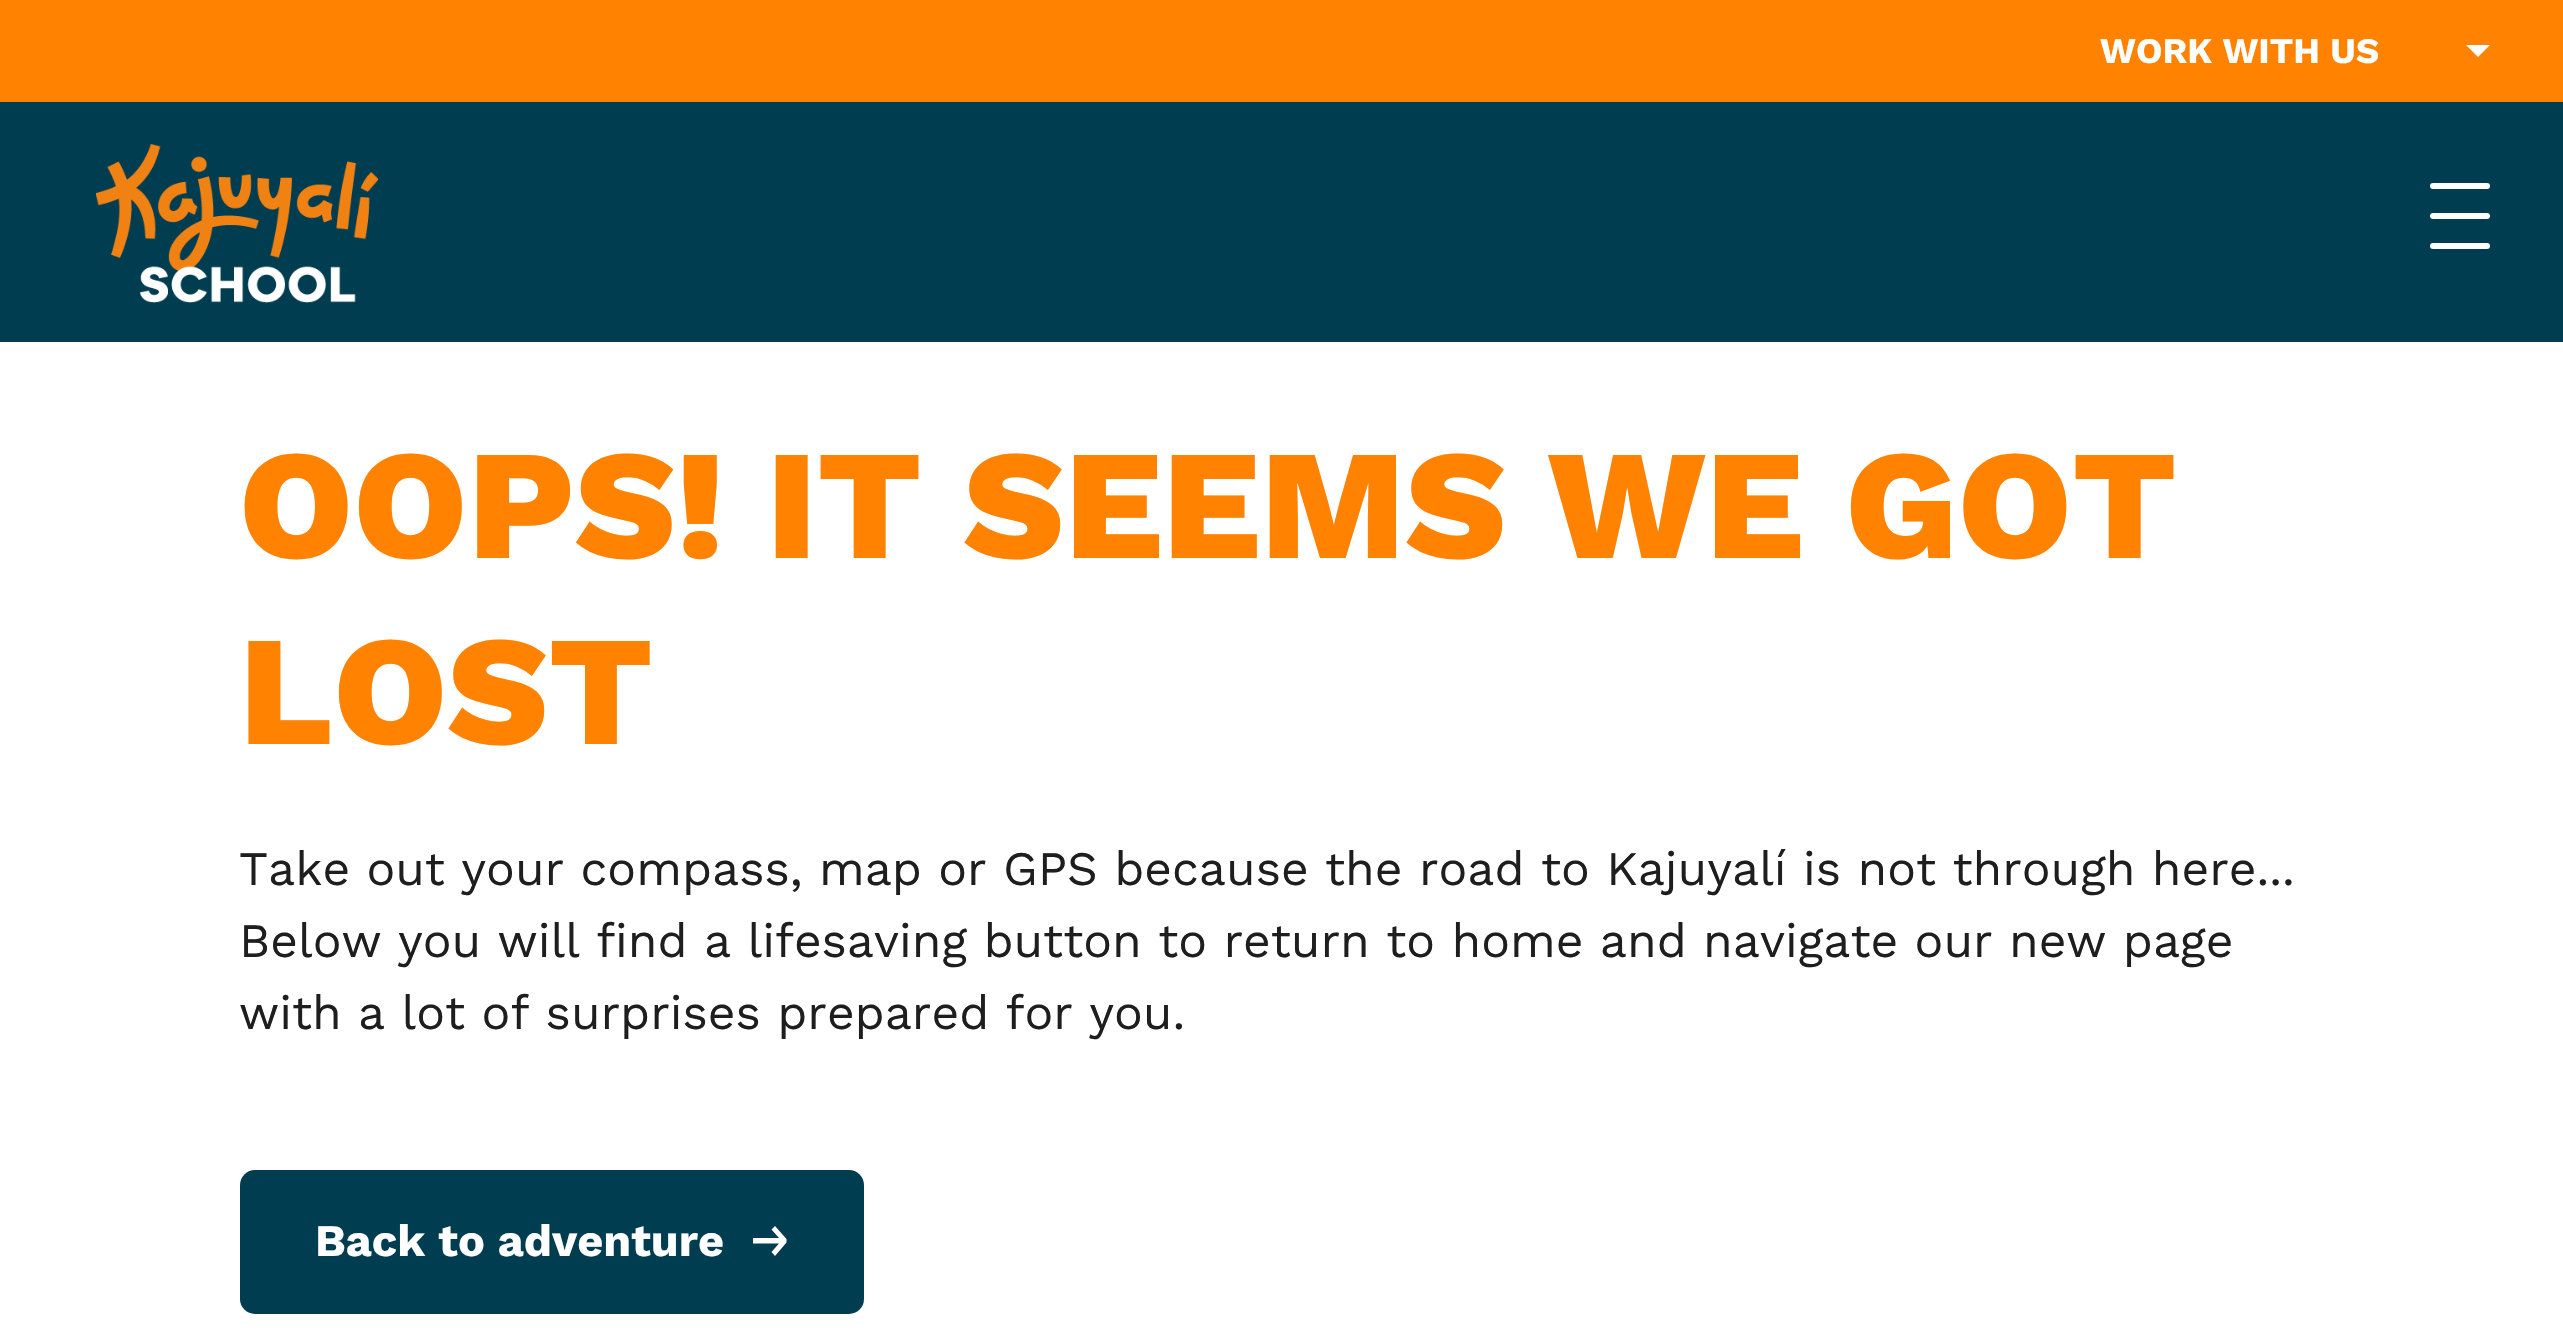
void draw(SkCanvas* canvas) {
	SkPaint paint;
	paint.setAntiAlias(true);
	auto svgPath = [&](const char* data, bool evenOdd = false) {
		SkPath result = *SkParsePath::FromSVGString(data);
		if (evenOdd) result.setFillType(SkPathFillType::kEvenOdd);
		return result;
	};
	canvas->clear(0xffffffff);
	paint.setColor(0xffff8200);
	canvas->drawRect(SkRect::MakeXYWH(0, 0, 2563, 102), paint);
	SkFont f1(fontMgr->matchFamilyStyle("Work Sans", SkFontStyle::Bold()), 36);
	f1.setSubpixel(true);
	paint.setColor(0xffffffff);
	canvas->drawString("WORK WITH US", 2100, 63, f1, paint);
	canvas->drawPath(svgPath("M2466 45H2490L2478 57Z"), paint);
	paint.setColor(0xff003d50);
	canvas->drawRect(SkRect::MakeXYWH(0, 102, 2563, 240), paint);
	canvas->drawImageRect(SkImages::DeferredFromEncodedData(SkData::MakeFromFileName("img1.png")), SkRect::MakeXYWH(96, 144, 282, 159), SkSamplingOptions());
	paint.setColor(0xffffffff);
	canvas->drawRoundRect(SkRect::MakeXYWH(2430, 183, 60, 6), 3, 3, paint);
	canvas->drawRoundRect(SkRect::MakeXYWH(2430, 213, 60, 6), 3, 3, paint);
	canvas->drawRoundRect(SkRect::MakeXYWH(2430, 243, 60, 6), 3, 3, paint);
	SkFont f2(fontMgr->matchFamilyStyle("Work Sans", SkFontStyle(800, SkFontStyle::kNormal_Width, SkFontStyle::kUpright_Slant)), 156);
	f2.setSubpixel(true);
	paint.setColor(0xffff8200);
	canvas->drawString("OOPS! IT SEEMS WE GOT", 239, 558, f2, paint);
	canvas->drawString("LOST", 239, 744, f2, paint);
	SkFont f3(fontMgr->matchFamilyStyle("Work Sans", SkFontStyle::Normal()), 48);
	f3.setSubpixel(true);
	paint.setColor(0xff1f1e1e);
	canvas->drawString("Take out your compass, map or GPS because the road to Kajuyalí is not through here...", 239, 885, f3, paint);
	canvas->drawString("Below you will find a lifesaving button to return to home and navigate our new page", 239, 957, f3, paint);
	canvas->drawString("with a lot of surprises prepared for you.", 239, 1029, f3, paint);
	paint.setColor(0xff003d50);
	canvas->drawRoundRect(SkRect::MakeXYWH(240, 1170, 624, 144), 15, 15, paint);
	SkFont f4(fontMgr->matchFamilyStyle("Work Sans", SkFontStyle::Bold()), 45);
	f4.setSubpixel(true);
	paint.setColor(0xffffffff);
	canvas->drawString("Back to adventure", 315, 1256, f4, paint);
	canvas->drawPath(svgPath("M775 1226L786.5 1239V1242.5L775 1256L771.5 1252L779 1243.5H753V1238H779L771.5 1229.5Z"), paint);
}
